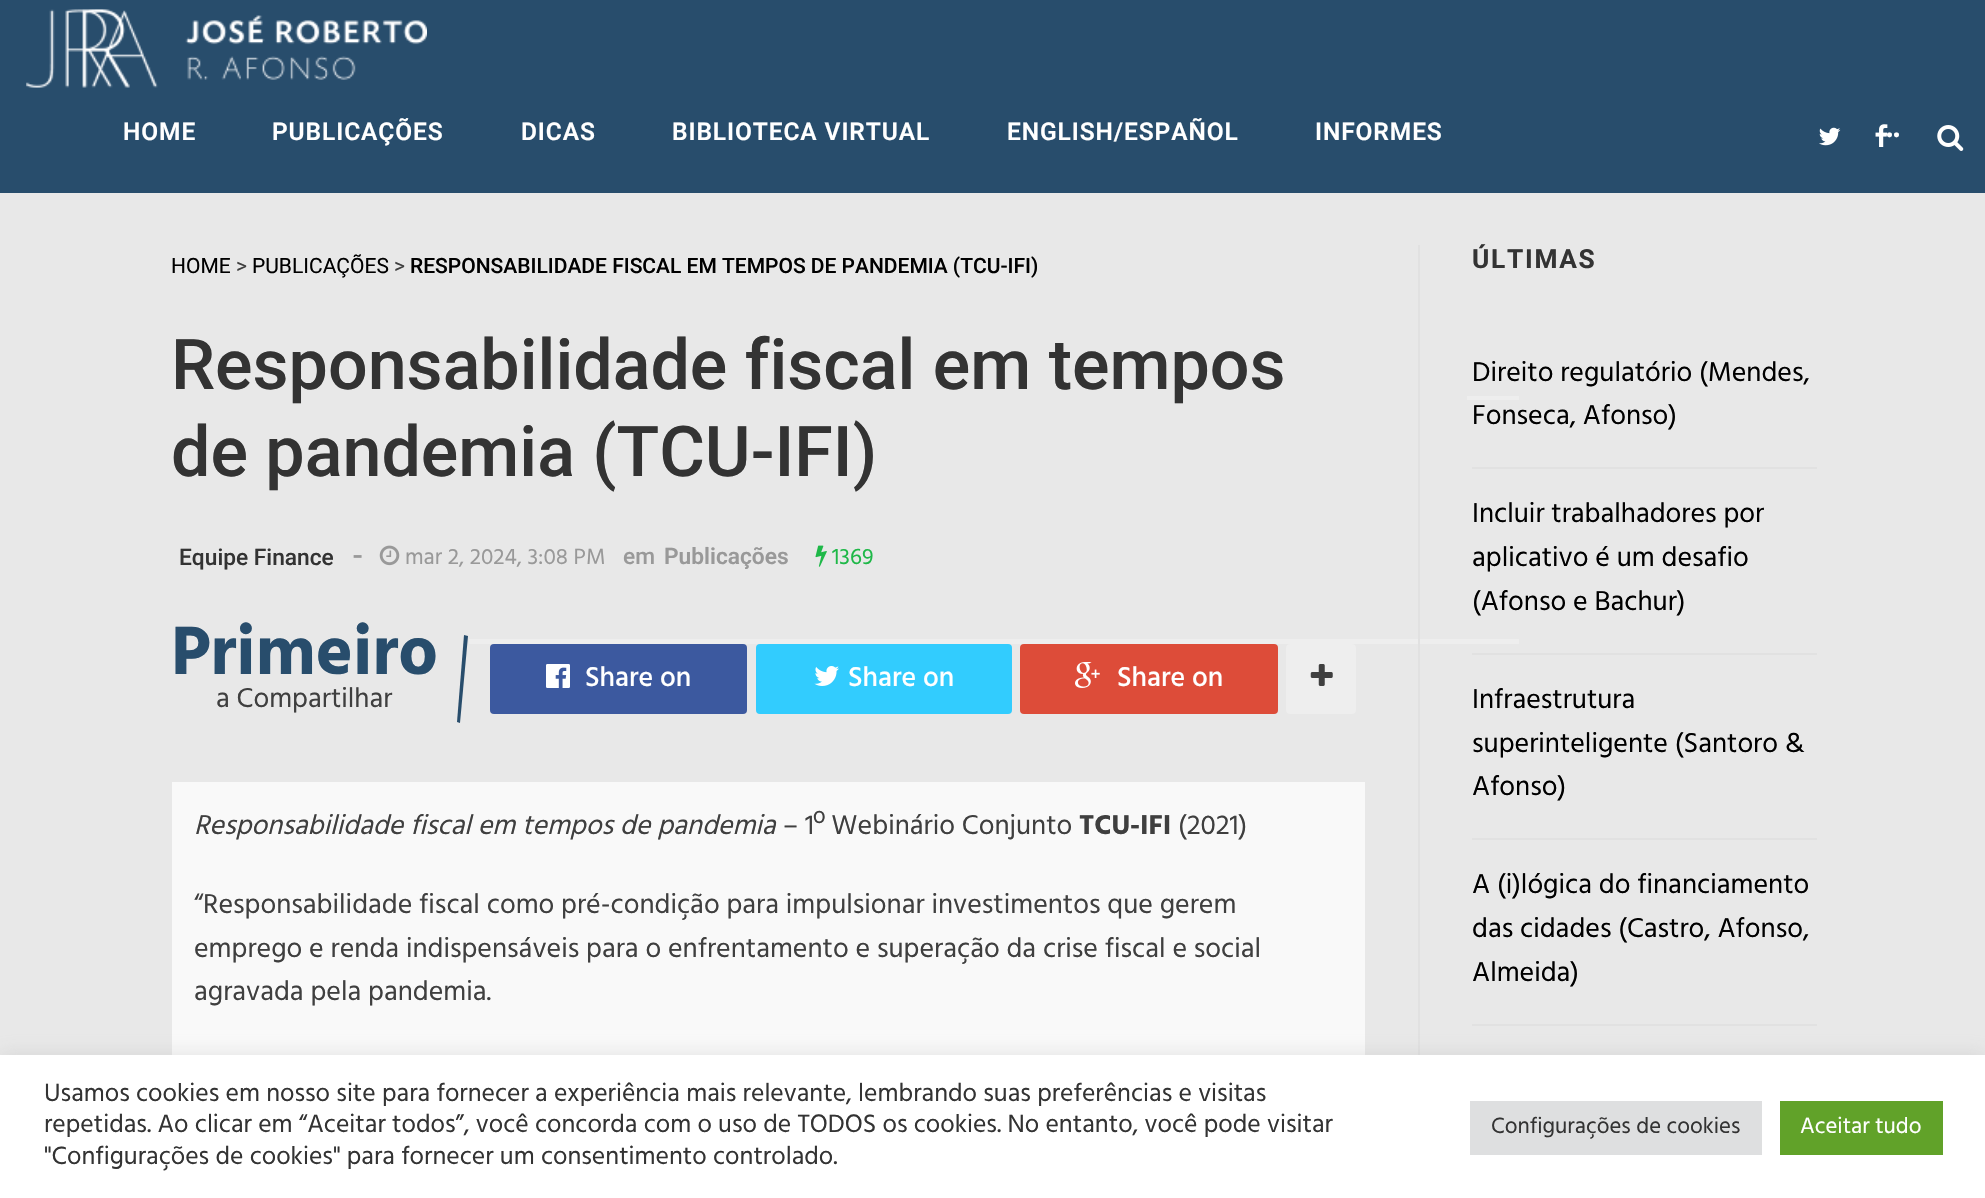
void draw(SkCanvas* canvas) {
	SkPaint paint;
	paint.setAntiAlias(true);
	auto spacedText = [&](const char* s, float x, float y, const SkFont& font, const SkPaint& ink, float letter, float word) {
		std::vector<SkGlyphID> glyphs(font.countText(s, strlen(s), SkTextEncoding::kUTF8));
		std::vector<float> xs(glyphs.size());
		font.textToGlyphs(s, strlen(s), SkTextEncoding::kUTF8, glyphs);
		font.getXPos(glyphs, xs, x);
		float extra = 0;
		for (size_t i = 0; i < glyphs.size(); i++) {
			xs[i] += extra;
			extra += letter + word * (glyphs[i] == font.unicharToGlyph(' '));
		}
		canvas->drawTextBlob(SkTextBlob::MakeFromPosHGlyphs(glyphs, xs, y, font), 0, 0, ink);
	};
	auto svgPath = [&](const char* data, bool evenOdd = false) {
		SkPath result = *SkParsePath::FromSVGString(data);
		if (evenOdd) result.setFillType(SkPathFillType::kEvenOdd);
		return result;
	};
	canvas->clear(0xffe8e8e8);
	paint.setColor(0xff284d6c);
	canvas->drawRect(SkRect::MakeXYWH(0, 0, 1985, 193), paint);
	canvas->drawImageRect(SkImages::DeferredFromEncodedData(SkData::MakeFromFileName("img1.png")), SkRect::MakeXYWH(26, 9, 401, 79), SkSamplingOptions());
	SkFont f1(fontMgr->matchFamilyStyle("Roboto", SkFontStyle(600, SkFontStyle::kNormal_Width, SkFontStyle::kUpright_Slant)), 24.5);
	f1.setSubpixel(true);
	paint.setColor(0xffffffff);
	spacedText("HOME", 123, 140, f1, paint, 0.9, 0);
	spacedText("PUBLICAÇÕES", 272, 140, f1, paint, 0.9, 0);
	spacedText("DICAS", 521, 140, f1, paint, 0.9, 0);
	spacedText("BIBLIOTECA VIRTUAL", 672, 140, f1, paint, 0.9, 0);
	spacedText("ENGLISH/ESPAÑOL", 1007, 140, f1, paint, 0.9, 0);
	spacedText("INFORMES", 1315, 140, f1, paint, 0.9, 0);
	canvas->drawImageRect(SkImages::DeferredFromEncodedData(SkData::MakeFromFileName("img2.png")), SkRect::MakeXYWH(1819, 127, 22, 19), SkSamplingOptions());
	canvas->drawImageRect(SkImages::DeferredFromEncodedData(SkData::MakeFromFileName("img3.png")), SkRect::MakeXYWH(1875, 124, 13, 23), SkSamplingOptions());
	SkFont f2(fontMgr->matchFamilyStyle("Hind", SkFontStyle::Normal()), 42);
	f2.setSubpixel(true);
	canvas->drawString("..", 1886, 137, f2, paint);
	canvas->drawImageRect(SkImages::DeferredFromEncodedData(SkData::MakeFromFileName("img4.png")), SkRect::MakeXYWH(1937, 125, 27, 26), SkSamplingOptions());
	SkFont f3(fontMgr->matchFamilyStyle("Roboto", SkFontStyle::Normal()), 21);
	f3.setSubpixel(true);
	paint.setColor(0xff000000);
	canvas->drawString("HOME", 171, 273, f3, paint);
	paint.setColor(0xff3f3f3f);
	canvas->drawString(">", 236, 273, f3, paint);
	paint.setColor(0xff000000);
	canvas->drawString("PUBLICAÇÕES", 252, 273, f3, paint);
	paint.setColor(0xff3f3f3f);
	canvas->drawString(">", 394, 273, f3, paint);
	SkFont f4(fontMgr->matchFamilyStyle("Roboto", SkFontStyle(500, SkFontStyle::kNormal_Width, SkFontStyle::kUpright_Slant)), 21);
	f4.setSubpixel(true);
	paint.setColor(0xff000000);
	canvas->drawString("RESPONSABILIDADE FISCAL EM TEMPOS DE PANDEMIA (TCU-IFI)", 410, 273, f4, paint);
	paint.setColor(0xffeeeeee);
	canvas->drawRect(SkRect::MakeXYWH(469, 639, 1050, 5), paint);
	paint.setColor(0xffe1e1e1);
	canvas->drawRect(SkRect::MakeXYWH(1418, 245, 2, 810), paint);
	SkFont f5(fontMgr->matchFamilyStyle("Roboto", SkFontStyle(500, SkFontStyle::kNormal_Width, SkFontStyle::kUpright_Slant)), 70);
	f5.setSubpixel(true);
	paint.setColor(0xff333333);
	canvas->drawString("Responsabilidade fiscal em tempos", 171, 389, f5, paint);
	canvas->drawString("de pandemia (TCU-IFI)", 171, 476, f5, paint);
	SkFont f6(fontMgr->matchFamilyStyle("Roboto", SkFontStyle(500, SkFontStyle::kNormal_Width, SkFontStyle::kUpright_Slant)), 22.75);
	f6.setSubpixel(true);
	canvas->drawString("Equipe Finance", 179, 565, f6, paint);
	SkFont f7(fontMgr->matchFamilyStyle("Hind", SkFontStyle(500, SkFontStyle::kNormal_Width, SkFontStyle::kUpright_Slant)), 32);
	f7.setSubpixel(true);
	paint.setColor(0xff999999);
	canvas->drawString("-", 352, 565, f7, paint);
	canvas->drawImageRect(SkImages::DeferredFromEncodedData(SkData::MakeFromFileName("img5.png")), SkRect::MakeXYWH(379, 545, 21, 21), SkSamplingOptions());
	SkFont f8(fontMgr->matchFamilyStyle("Hind", SkFontStyle::Normal()), 22.75);
	f8.setSubpixel(true);
	canvas->drawString("mar 2, 2024, 3:08 PM", 405, 564, f8, paint);
	canvas->drawString("em", 623, 564, f6, paint);
	SkFont f9(fontMgr->matchFamilyStyle("Roboto", SkFontStyle(600, SkFontStyle::kNormal_Width, SkFontStyle::kUpright_Slant)), 22.75);
	f9.setSubpixel(true);
	canvas->drawString("Publicações", 664, 564, f9, paint);
	canvas->drawImageRect(SkImages::DeferredFromEncodedData(SkData::MakeFromFileName("img6.png")), SkRect::MakeXYWH(815, 545, 12, 22), SkSamplingOptions());
	paint.setColor(0xff1eb848);
	canvas->drawString("1369", 832, 564, f8, paint);
	SkFont f10(fontMgr->matchFamilyStyle("Hind", SkFontStyle::Bold()), 70);
	f10.setSubpixel(true);
	paint.setColor(0xff284d6c);
	canvas->drawString("Primeiro", 171, 674, f10, paint);
	canvas->drawPath(svgPath("M464 635L468 636L460 723L457 722Z"), paint);
	SkFont f11(fontMgr->matchFamilyStyle("Hind", SkFontStyle::Normal()), 28);
	f11.setSubpixel(true);
	paint.setColor(0xff3f3f3f);
	canvas->drawString("a Compartilhar", 216, 707, f11, paint);
	paint.setColor(0xff3c599f);
	canvas->drawRoundRect(SkRect::MakeXYWH(490, 644, 257, 70), 4, 4, paint);
	canvas->drawImageRect(SkImages::DeferredFromEncodedData(SkData::MakeFromFileName("img7.png")), SkRect::MakeXYWH(546, 664, 24, 24), SkSamplingOptions());
	SkFont f12(fontMgr->matchFamilyStyle("Hind", SkFontStyle(500, SkFontStyle::kNormal_Width, SkFontStyle::kUpright_Slant)), 28);
	f12.setSubpixel(true);
	paint.setColor(0xffffffff);
	canvas->drawString("Share on", 585, 686, f12, paint);
	paint.setColor(0xff32ccfe);
	canvas->drawRoundRect(SkRect::MakeXYWH(756, 644, 256, 70), 4, 4, paint);
	canvas->drawImageRect(SkImages::DeferredFromEncodedData(SkData::MakeFromFileName("img8.png")), SkRect::MakeXYWH(814, 666, 25, 20), SkSamplingOptions());
	paint.setColor(0xffffffff);
	canvas->drawString("Share on", 848, 686, f12, paint);
	paint.setColor(0xffdd4c39);
	canvas->drawRoundRect(SkRect::MakeXYWH(1020, 644, 258, 70), 4, 4, paint);
	canvas->drawImageRect(SkImages::DeferredFromEncodedData(SkData::MakeFromFileName("img9.png")), SkRect::MakeXYWH(1075, 662, 25, 26), SkSamplingOptions());
	paint.setColor(0xffffffff);
	canvas->drawString("Share on", 1117, 686, f12, paint);
	paint.setColor(0xffeeeeee);
	canvas->drawRoundRect(SkRect::MakeXYWH(1286, 644, 70, 70), 4, 4, paint);
	canvas->drawImageRect(SkImages::DeferredFromEncodedData(SkData::MakeFromFileName("img10.png")), SkRect::MakeXYWH(1310, 664, 23, 22), SkSamplingOptions());
	paint.setColor(0xfff9f9f9);
	canvas->drawRect(SkRect::MakeXYWH(172, 782, 1193, 273), paint);
	SkFont f13(fontMgr->matchFamilyStyle("Hind", SkFontStyle::Italic()), 28);
	f13.setSubpixel(true);
	paint.setColor(0xff3f3f3f);
	canvas->drawString("Responsabilidade fiscal em tempos de pandemia", 194, 834, f13, paint);
	canvas->drawString("– 1º Webinário Conjunto", 783, 834, f11, paint);
	SkFont f14(fontMgr->matchFamilyStyle("Hind", SkFontStyle::Bold()), 28);
	f14.setSubpixel(true);
	canvas->drawString("TCU-IFI", 1079, 834, f14, paint);
	canvas->drawString("(2021)", 1178, 834, f11, paint);
	canvas->drawString("“Responsabilidade fiscal como pré-condição para impulsionar investimentos que gerem", 194, 913, f11, paint);
	canvas->drawString("emprego e renda indispensáveis para o enfrentamento e superação da crise fiscal e social", 194, 957, f11, paint);
	canvas->drawString("agravada pela pandemia.", 194, 1000, f11, paint);
	SkFont f15(fontMgr->matchFamilyStyle("Roboto", SkFontStyle::Bold()), 26.25);
	f15.setSubpixel(true);
	paint.setColor(0xff333333);
	spacedText("ÚLTIMAS", 1472, 268, f15, paint, 1.75, 0);
	paint.setColor(0xffe1e1e1);
	canvas->drawRect(SkRect::MakeXYWH(1472, 467, 345, 2), paint);
	paint.setColor(0xff000000);
	canvas->drawString("Direito regulatório (Mendes,", 1472, 381, f11, paint);
	canvas->drawString("Fonseca, Afonso)", 1472, 424, f11, paint);
	paint.setColor(0xffe1e1e1);
	canvas->drawRect(SkRect::MakeXYWH(1472, 653, 345, 2), paint);
	paint.setColor(0xff000000);
	canvas->drawString("Incluir trabalhadores por", 1472, 522, f11, paint);
	canvas->drawString("aplicativo é um desafio", 1472, 566, f11, paint);
	canvas->drawString("(Afonso e Bachur)", 1472, 610, f11, paint);
	paint.setColor(0xffe1e1e1);
	canvas->drawRect(SkRect::MakeXYWH(1472, 838, 345, 2), paint);
	paint.setColor(0xff000000);
	canvas->drawString("Infraestrutura", 1472, 708, f11, paint);
	canvas->drawString("superinteligente (Santoro &", 1472, 752, f11, paint);
	canvas->drawString("Afonso)", 1472, 795, f11, paint);
	paint.setColor(0xffe1e1e1);
	canvas->drawRect(SkRect::MakeXYWH(1472, 1024, 345, 2), paint);
	paint.setColor(0xff000000);
	canvas->drawString("A (i)lógica do financiamento", 1472, 893, f11, paint);
	canvas->drawString("das cidades (Castro, Afonso,", 1472, 937, f11, paint);
	canvas->drawString("Almeida)", 1472, 981, f11, paint);
	paint.setColor(0xffeeeeee);
	canvas->drawRect(SkRect::MakeXYWH(1467, 396, 52, 4), paint);
	paint.setColor(0x4dacabab);
	paint.setMaskFilter(SkMaskFilter::MakeBlur(kNormal_SkBlurStyle, 9));
	canvas->drawRect(SkRect::MakeXYWH(0, 1054, 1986, 143), paint);
	paint.setMaskFilter(nullptr);
	paint.setColor(0xffffffff);
	canvas->drawRect(SkRect::MakeXYWH(0, 1055, 1985, 143), paint);
	SkFont f16(fontMgr->matchFamilyStyle("Hind", SkFontStyle::Normal()), 25.67);
	f16.setSubpixel(true);
	paint.setColor(0xff333333);
	canvas->drawString("Usamos cookies em nosso site para fornecer a experiência mais relevante, lembrando suas preferências e visitas", 44, 1101, f16, paint);
	canvas->drawString("repetidas. Ao clicar em “Aceitar todos”, você concorda com o uso de TODOS os cookies. No entanto, você pode visitar", 44, 1132, f16, paint);
	canvas->drawString("\"Configurações de cookies\" para fornecer um consentimento controlado.", 44, 1164, f16, paint);
	paint.setColor(0xffdedfe0);
	canvas->drawRect(SkRect::MakeXYWH(1470, 1101, 292, 54), paint);
	paint.setColor(0xff333333);
	canvas->drawString("Configurações de cookies", 1491, 1133, f8, paint);
	paint.setColor(0xff61a229);
	canvas->drawRect(SkRect::MakeXYWH(1780, 1101, 163, 54), paint);
	paint.setColor(0xffffffff);
	canvas->drawString("Aceitar tudo", 1800, 1133, f8, paint);
}
